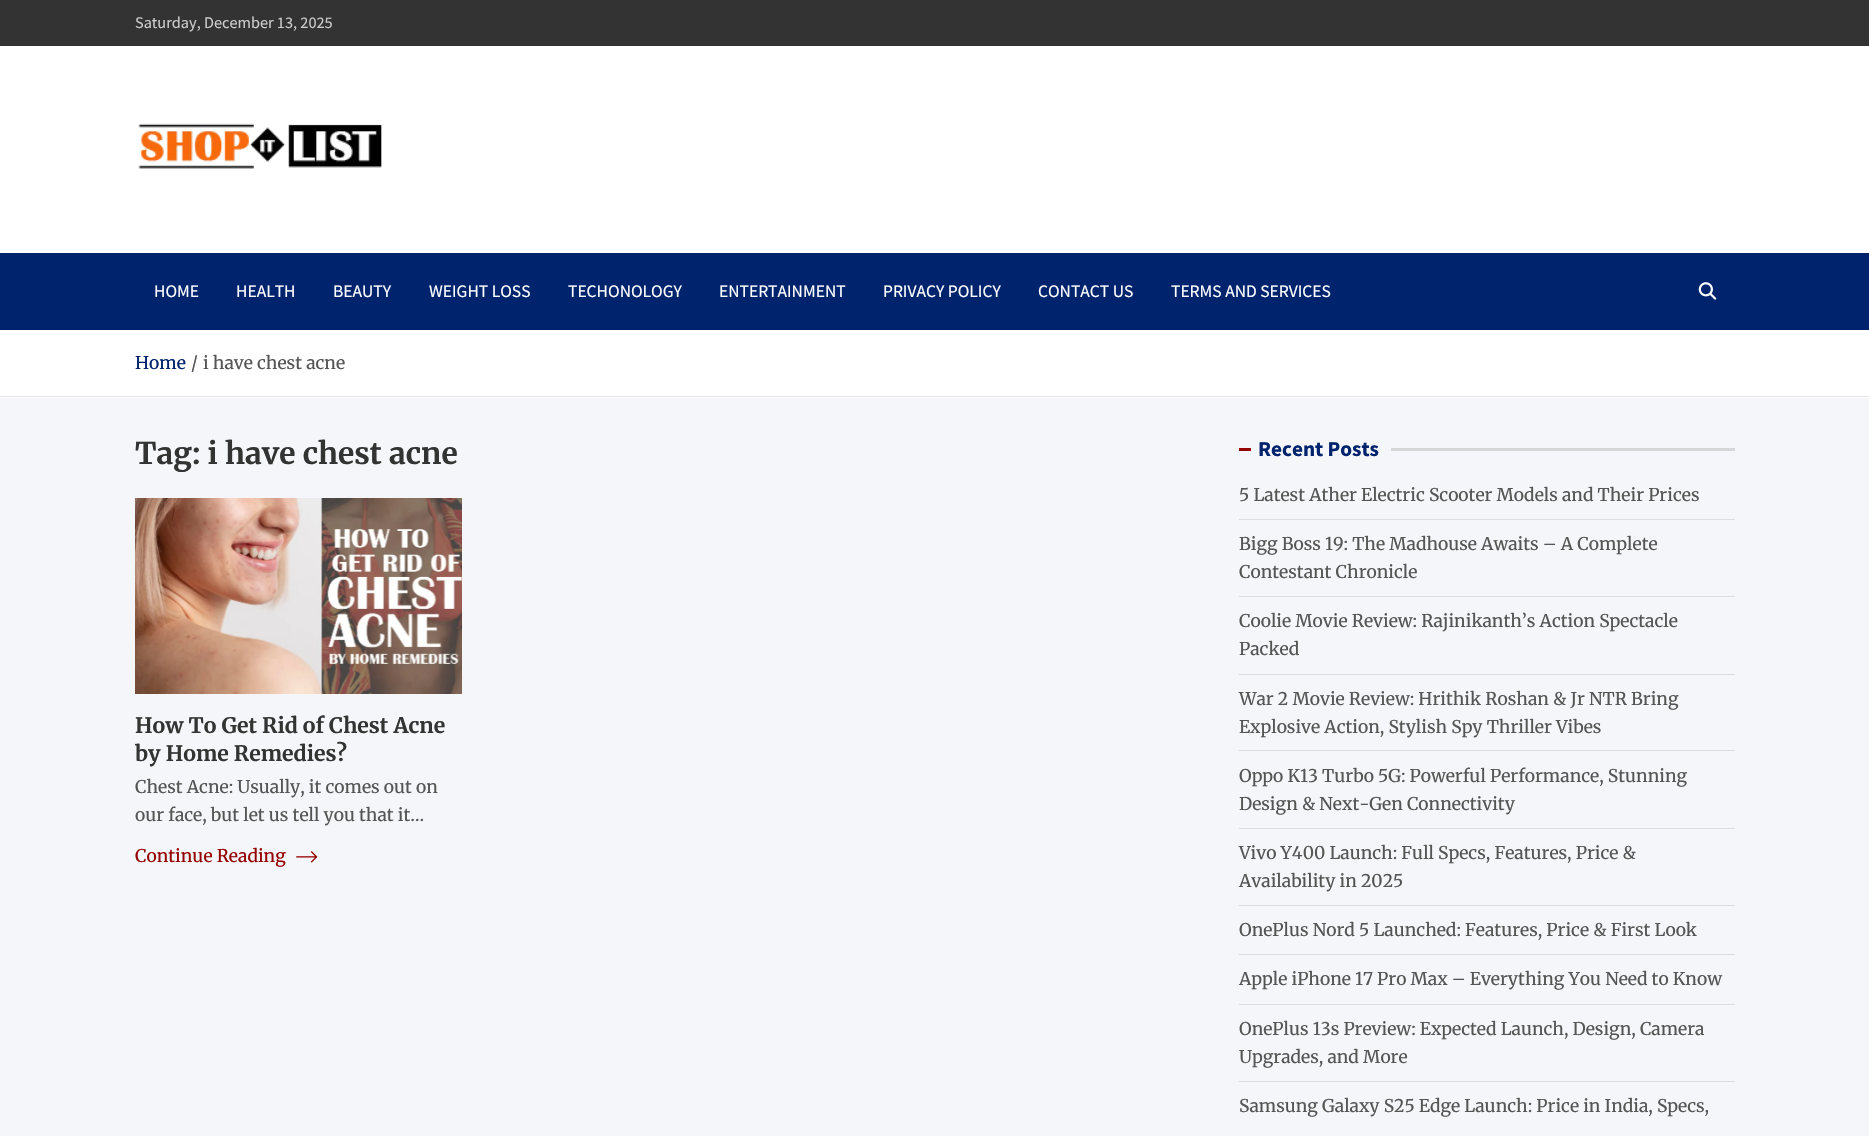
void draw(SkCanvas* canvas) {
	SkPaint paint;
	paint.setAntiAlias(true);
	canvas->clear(0xfff4f6f9);
	paint.setColor(0xff333333);
	canvas->drawRect(SkRect::MakeXYWH(0, 0, 1869, 46), paint);
	SkFont f1(fontMgr->matchFamilyStyle("Source Sans Pro", SkFontStyle::Normal()), 16.25);
	f1.setSubpixel(true);
	paint.setColor(0xffcccccc);
	canvas->drawString("Saturday, December 13, 2025", 135, 28, f1, paint);
	paint.setColor(0xffffffff);
	canvas->drawRect(SkRect::MakeXYWH(0, 46, 1869, 207), paint);
	canvas->drawImageRect(SkImages::DeferredFromEncodedData(SkData::MakeFromFileName("img1.png")), SkRect::MakeXYWH(138, 123, 244, 46), SkSamplingOptions());
	paint.setColor(0xff00236e);
	canvas->drawRect(SkRect::MakeXYWH(0, 253, 1869, 77), paint);
	SkFont f2(fontMgr->matchFamilyStyle("Source Sans Pro", SkFontStyle::Normal()), 17.5);
	f2.setSubpixel(true);
	paint.setColor(0xffffffff);
	canvas->drawString("HOME", 154, 297, f2, paint);
	canvas->drawString("HEALTH", 236, 297, f2, paint);
	canvas->drawString("BEAUTY", 333, 297, f2, paint);
	canvas->drawString("WEIGHT LOSS", 429, 297, f2, paint);
	canvas->drawString("TECHONOLOGY", 568, 297, f2, paint);
	canvas->drawString("ENTERTAINMENT", 719, 297, f2, paint);
	canvas->drawString("PRIVACY POLICY", 883, 297, f2, paint);
	canvas->drawString("CONTACT US", 1038, 297, f2, paint);
	canvas->drawString("TERMS AND SERVICES", 1171, 297, f2, paint);
	canvas->drawImageRect(SkImages::DeferredFromEncodedData(SkData::MakeFromFileName("img2.png")), SkRect::MakeXYWH(1698, 282, 19, 18), SkSamplingOptions());
	canvas->drawRect(SkRect::MakeXYWH(0, 330, 1869, 68), paint);
	paint.setColor(0xffe6e6e6);
	canvas->drawRect(SkRect::MakeXYWH(0, 396, 1869, 1), paint);
	SkFont f3(fontMgr->matchFamilyStyle("Merriweather", SkFontStyle::Normal()), 17.5);
	f3.setSubpixel(true);
	paint.setColor(0xff00236e);
	canvas->drawString("Home", 135, 369, f3, paint);
	paint.setColor(0xff555555);
	canvas->drawString("/", 191, 369, f3, paint);
	canvas->drawString("i have chest acne", 203, 369, f3, paint);
	SkFont f4(fontMgr->matchFamilyStyle("Merriweather", SkFontStyle::Bold()), 30);
	f4.setSubpixel(true);
	paint.setColor(0xff333333);
	canvas->drawString("Tag: i have chest acne", 135, 464, f4, paint);
	canvas->drawImageRect(SkImages::DeferredFromEncodedData(SkData::MakeFromFileName("img3.png")), SkRect::MakeXYWH(135, 498, 327, 196), SkSamplingOptions());
	SkFont f5(fontMgr->matchFamilyStyle("Merriweather", SkFontStyle::Bold()), 21.25);
	f5.setSubpixel(true);
	canvas->drawString("How To Get Rid of Chest Acne", 135, 733, f5, paint);
	canvas->drawString("by Home Remedies?", 135, 761, f5, paint);
	paint.setColor(0xff555555);
	canvas->drawString("Chest Acne: Usually, it comes out on", 135, 793, f3, paint);
	canvas->drawString("our face, but let us tell you that it…", 135, 821, f3, paint);
	paint.setColor(0xff950202);
	canvas->drawString("Continue Reading", 135, 862, f3, paint);
	canvas->drawImageRect(SkImages::DeferredFromEncodedData(SkData::MakeFromFileName("img4.png")), SkRect::MakeXYWH(296, 851, 22, 12), SkSamplingOptions());
	canvas->drawRect(SkRect::MakeXYWH(1239, 448, 12, 3), paint);
	SkFont f6(fontMgr->matchFamilyStyle("Source Sans Pro", SkFontStyle::Bold()), 21.25);
	f6.setSubpixel(true);
	paint.setColor(0xff00236e);
	canvas->drawString("Recent Posts", 1258, 456, f6, paint);
	paint.setColor(0xffd4d6d8);
	canvas->drawRect(SkRect::MakeXYWH(1391, 448, 344, 3), paint);
	paint.setColor(0xffdcdde0);
	canvas->drawRect(SkRect::MakeXYWH(1239, 519, 496, 1), paint);
	paint.setColor(0xff555555);
	canvas->drawString("5 Latest Ather Electric Scooter Models and Their Prices", 1239, 501, f3, paint);
	paint.setColor(0xffdcdde0);
	canvas->drawRect(SkRect::MakeXYWH(1239, 596, 496, 1), paint);
	paint.setColor(0xff555555);
	canvas->drawString("Bigg Boss 19: The Madhouse Awaits – A Complete", 1239, 550, f3, paint);
	canvas->drawString("Contestant Chronicle", 1239, 578, f3, paint);
	paint.setColor(0xffdcdde0);
	canvas->drawRect(SkRect::MakeXYWH(1239, 674, 496, 1), paint);
	paint.setColor(0xff555555);
	canvas->drawString("Coolie Movie Review: Rajinikanth’s Action Spectacle", 1239, 627, f3, paint);
	canvas->drawString("Packed", 1239, 655, f3, paint);
	paint.setColor(0xffdcdde0);
	canvas->drawRect(SkRect::MakeXYWH(1239, 750, 496, 1), paint);
	paint.setColor(0xff555555);
	canvas->drawString("War 2 Movie Review: Hrithik Roshan & Jr NTR Bring", 1239, 705, f3, paint);
	canvas->drawString("Explosive Action, Stylish Spy Thriller Vibes", 1239, 733, f3, paint);
	paint.setColor(0xffdcdde0);
	canvas->drawRect(SkRect::MakeXYWH(1239, 828, 496, 1), paint);
	paint.setColor(0xff555555);
	canvas->drawString("Oppo K13 Turbo 5G: Powerful Performance, Stunning", 1239, 782, f3, paint);
	canvas->drawString("Design & Next-Gen Connectivity", 1239, 810, f3, paint);
	paint.setColor(0xffdcdde0);
	canvas->drawRect(SkRect::MakeXYWH(1239, 905, 496, 1), paint);
	paint.setColor(0xff555555);
	canvas->drawString("Vivo Y400 Launch: Full Specs, Features, Price &", 1239, 859, f3, paint);
	canvas->drawString("Availability in 2025", 1239, 887, f3, paint);
	paint.setColor(0xffdcdde0);
	canvas->drawRect(SkRect::MakeXYWH(1239, 954, 496, 1), paint);
	paint.setColor(0xff555555);
	canvas->drawString("OnePlus Nord 5 Launched: Features, Price & First Look", 1239, 936, f3, paint);
	paint.setColor(0xffdcdde0);
	canvas->drawRect(SkRect::MakeXYWH(1239, 1004, 496, 1), paint);
	paint.setColor(0xff555555);
	canvas->drawString("Apple iPhone 17 Pro Max – Everything You Need to Know", 1239, 985, f3, paint);
	paint.setColor(0xffdcdde0);
	canvas->drawRect(SkRect::MakeXYWH(1239, 1081, 496, 1), paint);
	paint.setColor(0xff555555);
	canvas->drawString("OnePlus 13s Preview: Expected Launch, Design, Camera", 1239, 1035, f3, paint);
	canvas->drawString("Upgrades, and More", 1239, 1063, f3, paint);
	canvas->drawString("Samsung Galaxy S25 Edge Launch: Price in India, Specs,", 1239, 1112, f3, paint);
}
